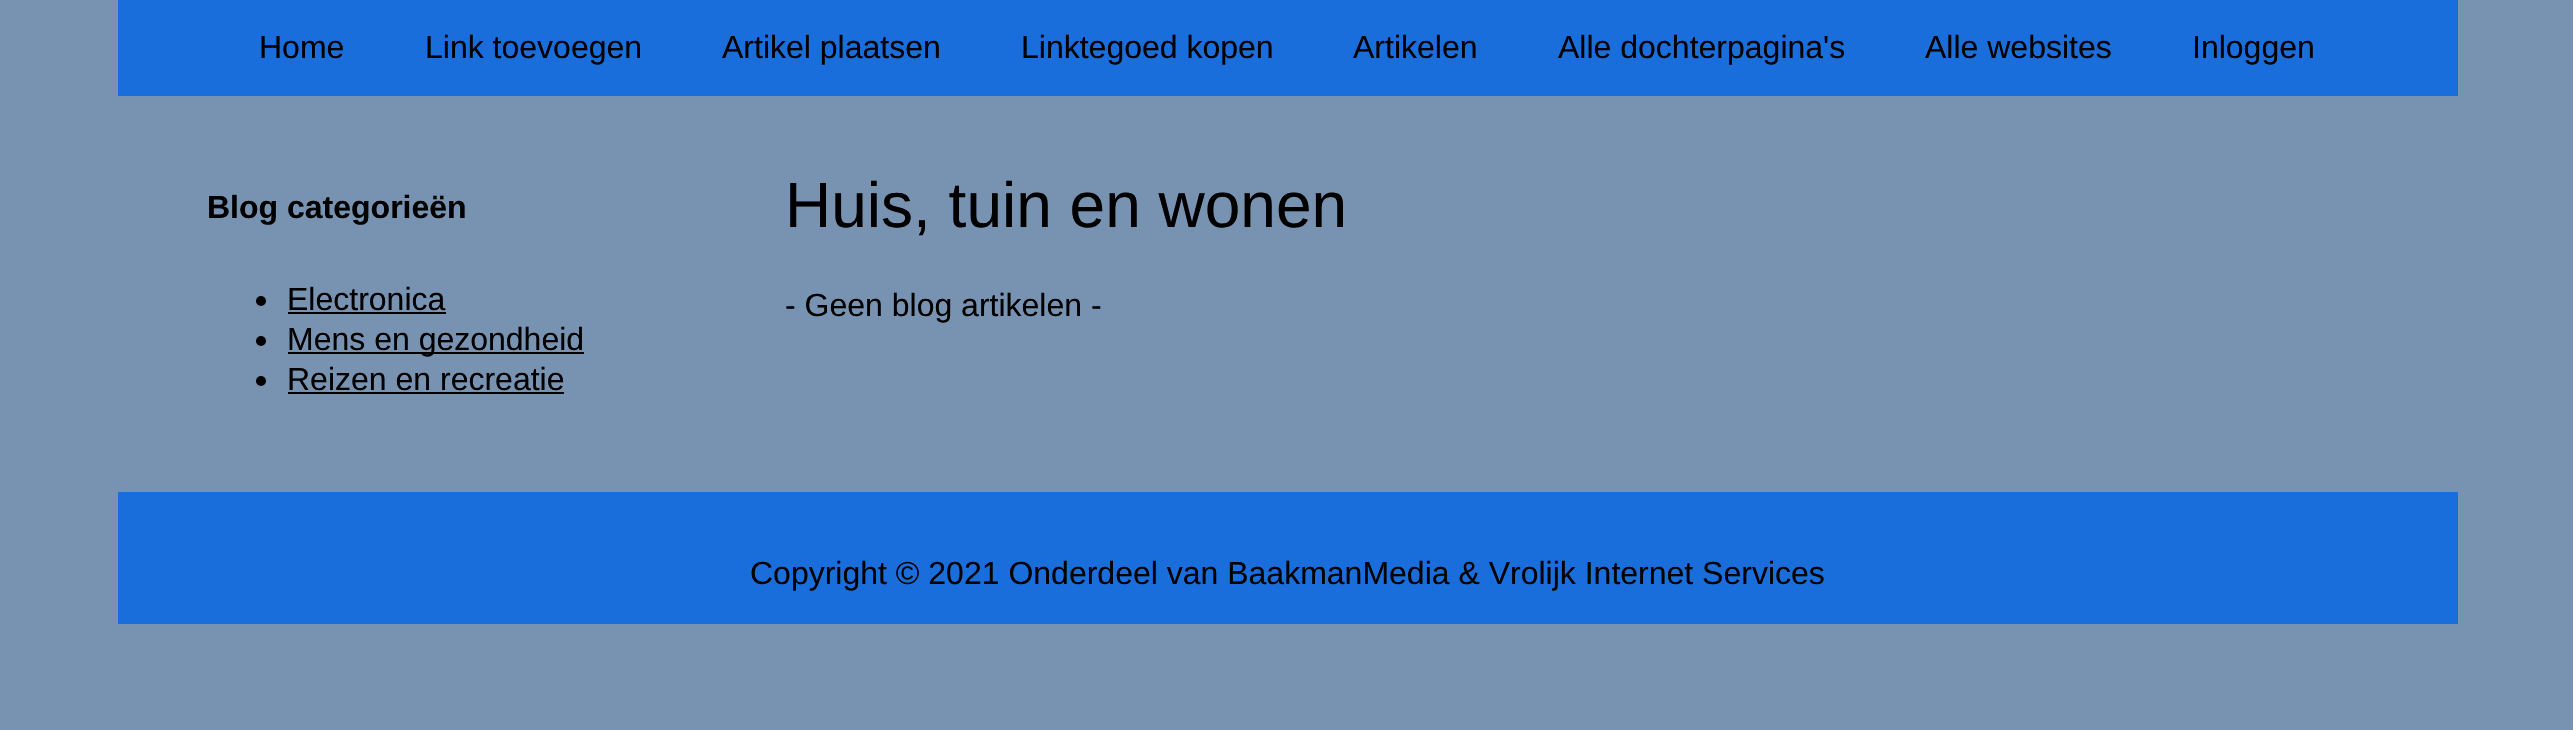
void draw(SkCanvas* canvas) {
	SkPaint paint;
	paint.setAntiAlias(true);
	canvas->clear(0xff7793b1);
	paint.setColor(0xff1a6edb);
	canvas->drawRect(SkRect::MakeXYWH(118, 0, 2340, 96), paint);
	SkFont f1(fontMgr->matchFamilyStyle("Liberation Sans", SkFontStyle::Normal()), 32);
	f1.setSubpixel(true);
	paint.setColor(0xff000000);
	canvas->drawString("Home", 259, 58, f1, paint);
	canvas->drawString("Link toevoegen", 425, 58, f1, paint);
	canvas->drawString("Artikel plaatsen", 722, 58, f1, paint);
	canvas->drawString("Linktegoed kopen", 1021, 58, f1, paint);
	canvas->drawString("Artikelen", 1353, 58, f1, paint);
	canvas->drawString("Alle dochterpagina's", 1558, 58, f1, paint);
	canvas->drawString("Alle websites", 1925, 58, f1, paint);
	canvas->drawString("Inloggen", 2192, 58, f1, paint);
	SkFont f2(fontMgr->matchFamilyStyle("Liberation Sans", SkFontStyle::Bold()), 32);
	f2.setSubpixel(true);
	canvas->drawString("Blog categorieën", 207, 218, f2, paint);
	canvas->drawCircle(261, 301, 5, paint);
	canvas->drawString("Electronica", 287, 310, f1, paint);
	canvas->drawRect(SkRect::MakeXYWH(288, 312, 158, 2), paint);
	canvas->drawCircle(261, 341, 5, paint);
	canvas->drawRect(SkRect::MakeXYWH(288, 352, 296, 2), paint);
	canvas->drawString("Mens en gezondheid", 287, 350, f1, paint);
	canvas->drawCircle(261, 381, 5, paint);
	canvas->drawString("Reizen en recreatie", 287, 390, f1, paint);
	canvas->drawRect(SkRect::MakeXYWH(288, 392, 276, 2), paint);
	SkFont f3(fontMgr->matchFamilyStyle("Liberation Sans", SkFontStyle::Normal()), 64);
	f3.setSubpixel(true);
	canvas->drawString("Huis, tuin en wonen", 785, 227, f3, paint);
	canvas->drawString("- Geen blog artikelen -", 785, 316, f1, paint);
	paint.setColor(0xff1a6edb);
	canvas->drawRect(SkRect::MakeXYWH(118, 492, 2340, 132), paint);
	paint.setColor(0xff000000);
	canvas->drawString("Copyright © 2021 Onderdeel van BaakmanMedia & Vrolijk Internet Services", 750, 584, f1, paint);
}
